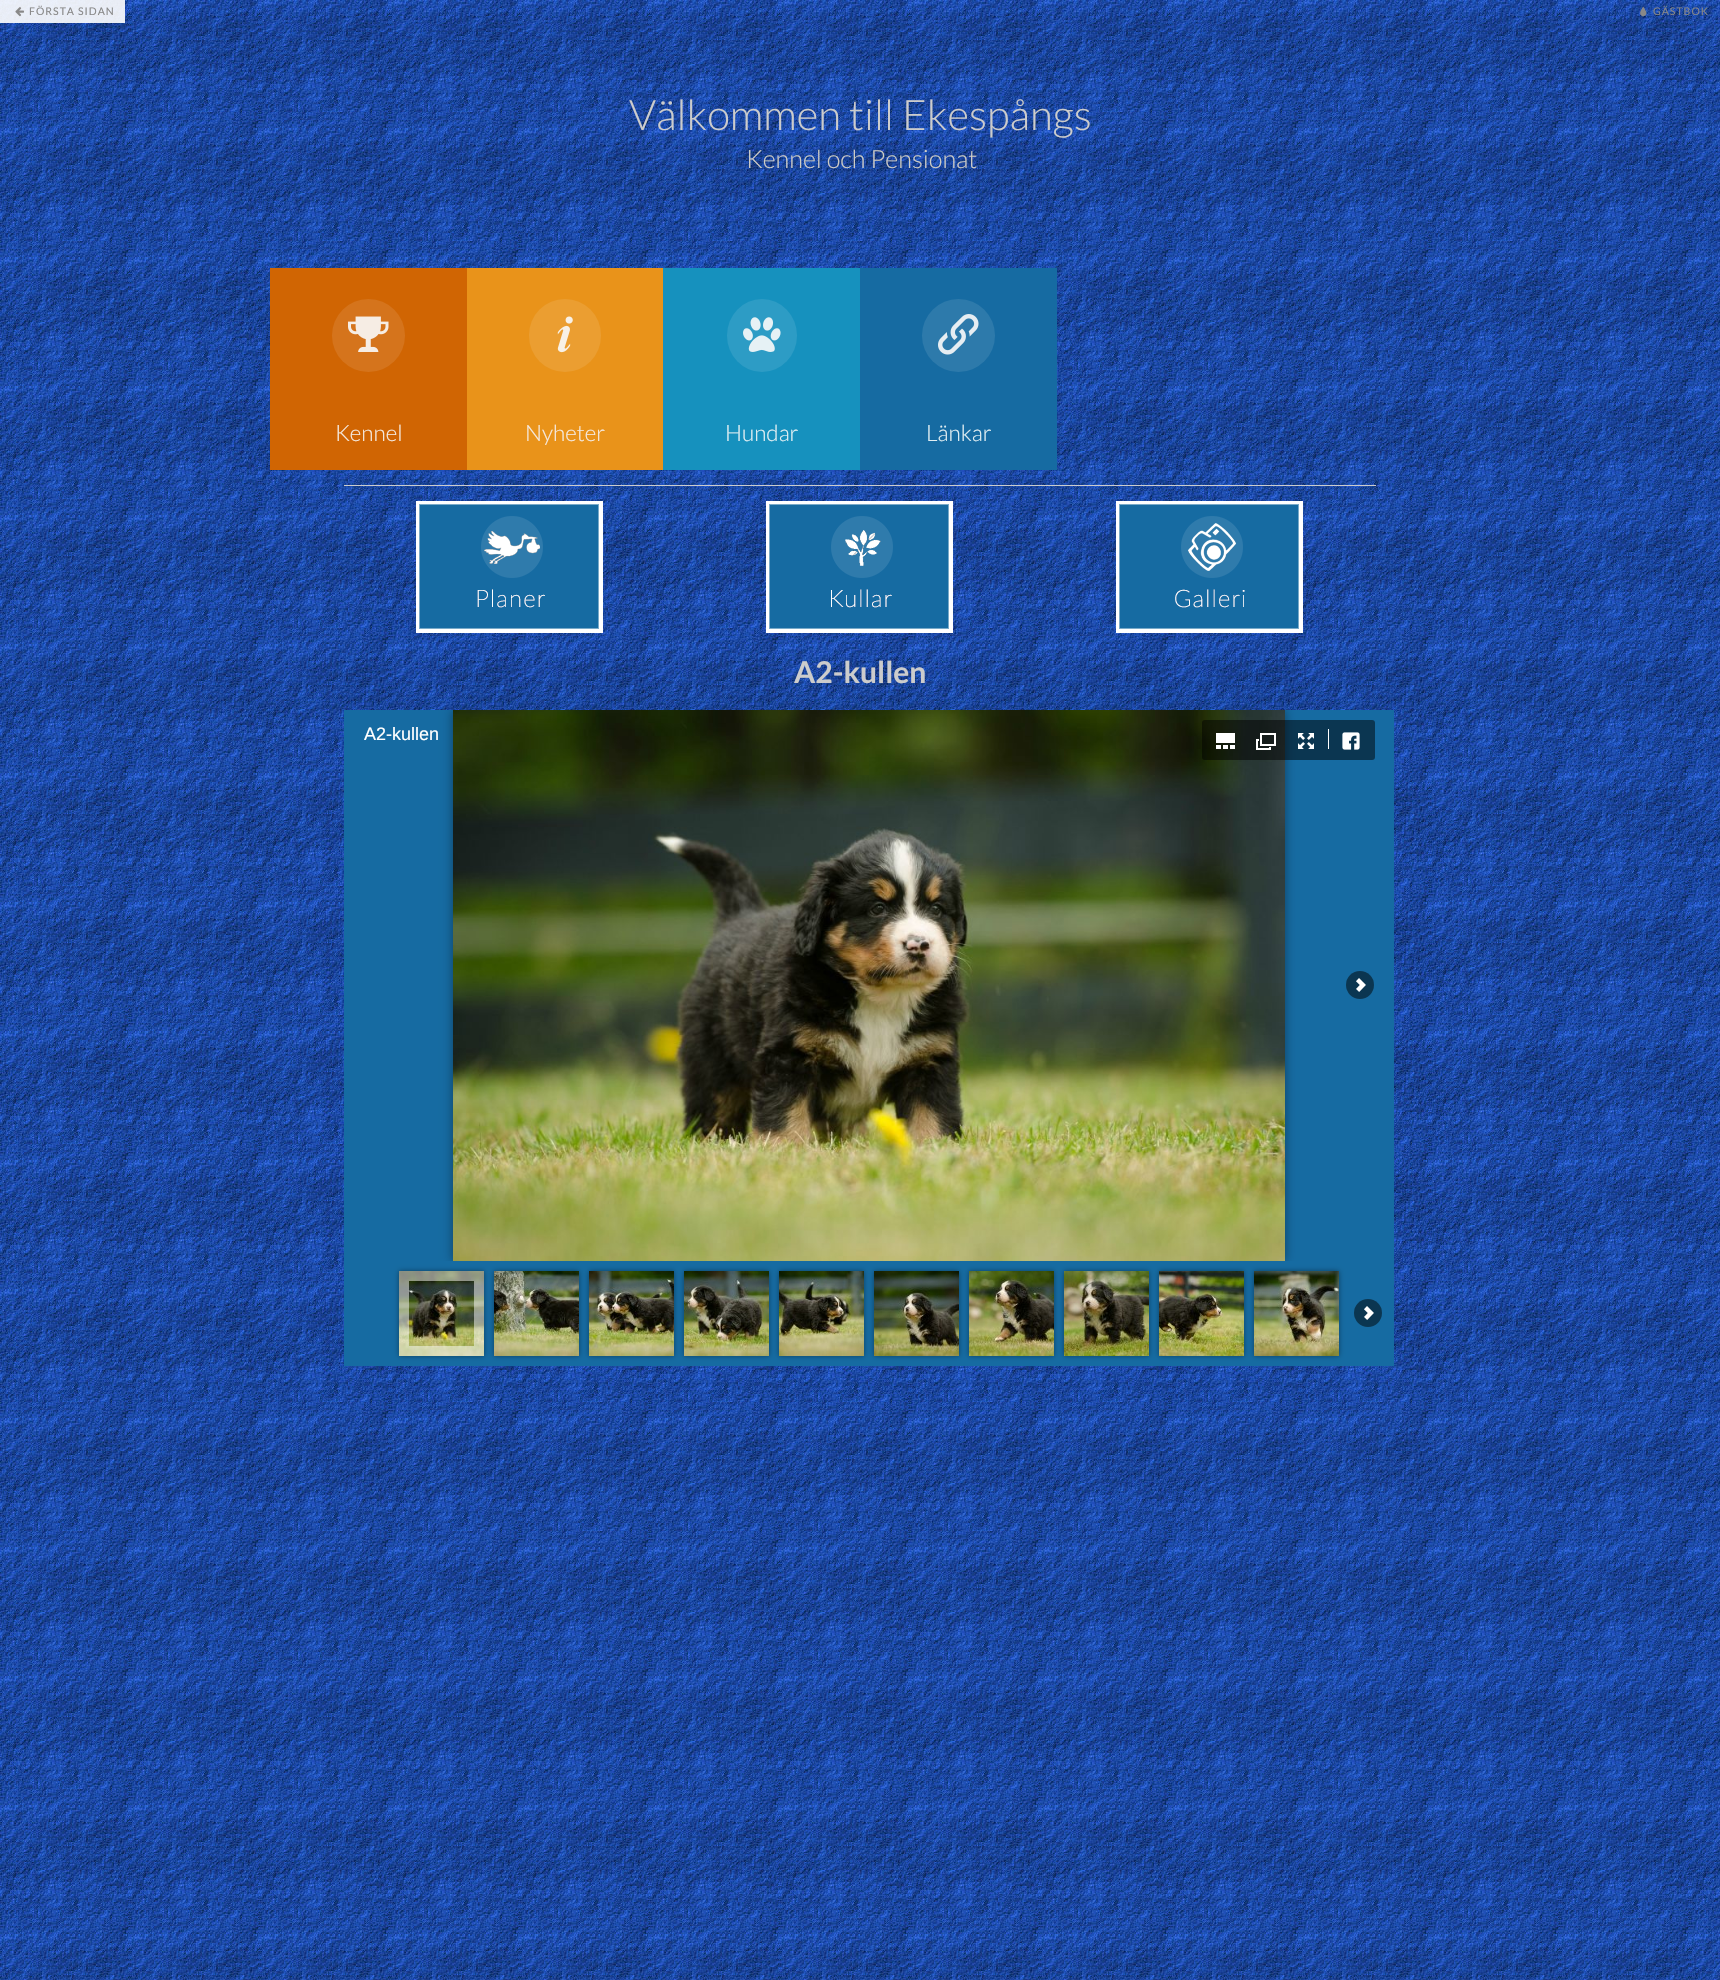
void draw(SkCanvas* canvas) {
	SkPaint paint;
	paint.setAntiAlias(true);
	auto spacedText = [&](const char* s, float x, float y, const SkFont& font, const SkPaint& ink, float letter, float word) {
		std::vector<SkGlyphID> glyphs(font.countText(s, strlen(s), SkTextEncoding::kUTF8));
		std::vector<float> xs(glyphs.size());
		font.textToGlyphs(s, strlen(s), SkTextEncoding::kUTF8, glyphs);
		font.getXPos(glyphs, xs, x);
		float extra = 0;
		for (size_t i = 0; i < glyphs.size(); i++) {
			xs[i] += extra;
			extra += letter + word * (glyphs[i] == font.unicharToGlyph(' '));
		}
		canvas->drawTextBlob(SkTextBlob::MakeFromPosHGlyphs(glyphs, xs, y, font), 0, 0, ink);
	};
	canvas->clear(0xffffffff);
	canvas->drawImageRect(SkImages::DeferredFromEncodedData(SkData::MakeFromFileName("img1.png")), SkRect::MakeXYWH(0, 0, 1720, 1980), SkSamplingOptions());
	paint.setColor(0xe6ffffff);
	canvas->drawRect(SkRect::MakeXYWH(0, 0, 125, 23), paint);
	canvas->drawImageRect(SkImages::DeferredFromEncodedData(SkData::MakeFromFileName("img2.png")), SkRect::MakeXYWH(15, 7, 9, 10), SkSamplingOptions());
	SkFont f1(fontMgr->matchFamilyStyle("Lato", SkFontStyle::Normal()), 10.5);
	f1.setSubpixel(true);
	paint.setColor(0xff888888);
	spacedText("FÖRSTA SIDAN", 29, 15, f1, paint, 1, 0);
	canvas->drawImageRect(SkImages::DeferredFromEncodedData(SkData::MakeFromFileName("img3.png")), SkRect::MakeXYWH(1640, 6, 7, 11), SkSamplingOptions());
	spacedText("GÄSTBOK", 1653, 15, f1, paint, 1, 0);
	SkFont f2(fontMgr->matchFamilyStyle("Lato", SkFontStyle(300, SkFontStyle::kNormal_Width, SkFontStyle::kUpright_Slant)), 42);
	f2.setSubpixel(true);
	paint.setColor(0xffcccccc);
	canvas->drawString("Välkommen till Ekespångs", 629, 130, f2, paint);
	SkFont f3(fontMgr->matchFamilyStyle("Lato", SkFontStyle(300, SkFontStyle::kNormal_Width, SkFontStyle::kUpright_Slant)), 25.25);
	f3.setSubpixel(true);
	paint.setColor(0xffceccc6);
	canvas->drawString("Kennel och Pensionat", 746, 168, f3, paint);
	paint.setColor(0xffd06503);
	canvas->drawRect(SkRect::MakeXYWH(270, 268, 197, 202), paint);
	paint.setColor(0xffd5741c);
	canvas->drawCircle(368.5, 335.5, 36.5, paint);
	canvas->drawImageRect(SkImages::DeferredFromEncodedData(SkData::MakeFromFileName("img4.png")), SkRect::MakeXYWH(348, 316, 41, 36), SkSamplingOptions());
	SkFont f4(fontMgr->matchFamilyStyle("Lato", SkFontStyle(300, SkFontStyle::kNormal_Width, SkFontStyle::kUpright_Slant)), 22.5);
	f4.setSubpixel(true);
	paint.setColor(0xfff5eae0);
	canvas->drawString("Kennel", 335, 441, f4, paint);
	paint.setColor(0xffe9931a);
	canvas->drawRect(SkRect::MakeXYWH(467, 268, 196, 202), paint);
	paint.setColor(0xffeb9e31);
	canvas->drawRoundRect(SkRect::MakeXYWH(529, 299, 72, 73), 36, 36, paint);
	canvas->drawImageRect(SkImages::DeferredFromEncodedData(SkData::MakeFromFileName("img5.png")), SkRect::MakeXYWH(557, 316, 16, 37), SkSamplingOptions());
	paint.setColor(0xfff5eae0);
	canvas->drawString("Nyheter", 525, 441, f4, paint);
	paint.setColor(0xff1691be);
	canvas->drawRect(SkRect::MakeXYWH(663, 268, 197, 202), paint);
	paint.setColor(0xff2d9cc5);
	canvas->drawOval(SkRect::MakeXYWH(727, 299, 70, 73), paint);
	canvas->drawImageRect(SkImages::DeferredFromEncodedData(SkData::MakeFromFileName("img6.png")), SkRect::MakeXYWH(743, 317, 38, 35), SkSamplingOptions());
	paint.setColor(0xffe2eff3);
	canvas->drawString("Hundar", 725, 441, f4, paint);
	paint.setColor(0xff166ba2);
	canvas->drawRect(SkRect::MakeXYWH(860, 268, 197, 202), paint);
	paint.setColor(0xff2d7aab);
	canvas->drawCircle(958.5, 335.5, 36.5, paint);
	canvas->drawImageRect(SkImages::DeferredFromEncodedData(SkData::MakeFromFileName("img7.png")), SkRect::MakeXYWH(938, 314, 41, 41), SkSamplingOptions());
	paint.setColor(0xffe2eff3);
	canvas->drawString("Länkar", 926, 441, f4, paint);
	paint.setColor(0xffcccccc);
	canvas->drawRect(SkRect::MakeXYWH(344, 485, 1032, 1), paint);
	paint.setStroke(true);
	paint.setStrokeWidth(1);
	paint.setColor(0xffffffff);
	canvas->drawRect(SkRect::MakeXYWH(416.5, 501.5, 186, 131), paint);
	canvas->drawImageRect(SkImages::DeferredFromEncodedData(SkData::MakeFromFileName("img8.png")), SkRect::MakeXYWH(417, 502, 185, 130), SkSamplingOptions());
	canvas->drawRect(SkRect::MakeXYWH(766.5, 501.5, 186, 131), paint);
	canvas->drawImageRect(SkImages::DeferredFromEncodedData(SkData::MakeFromFileName("img9.png")), SkRect::MakeXYWH(767, 502, 185, 130), SkSamplingOptions());
	canvas->drawRect(SkRect::MakeXYWH(1116.5, 501.5, 186, 131), paint);
	canvas->drawImageRect(SkImages::DeferredFromEncodedData(SkData::MakeFromFileName("img10.png")), SkRect::MakeXYWH(1117, 502, 185, 130), SkSamplingOptions());
	SkFont f5(fontMgr->matchFamilyStyle("Lato", SkFontStyle::Bold()), 30);
	f5.setSubpixel(true);
	paint.setStroke(false);
	paint.setColor(0xffcccccc);
	canvas->drawString("A2-kullen", 794, 683, f5, paint);
	paint.setColor(0xff166ba2);
	canvas->drawRect(SkRect::MakeXYWH(344, 710, 1050, 656), paint);
	canvas->save();
	canvas->clipRect(SkRect::MakeXYWH(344, 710, 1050, 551));
	paint.setColor(0x66000000);
	paint.setMaskFilter(SkMaskFilter::MakeBlur(kNormal_SkBlurStyle, 5));
	canvas->drawRect(SkRect::MakeXYWH(453, 710, 832, 551), paint);
	paint.setMaskFilter(nullptr);
	canvas->restore();
	canvas->drawImageRect(SkImages::DeferredFromEncodedData(SkData::MakeFromFileName("img11.png")), SkRect::MakeXYWH(453, 710, 832, 551), SkSamplingOptions());
	SkFont f6(fontMgr->matchFamilyStyle("Liberation Sans", SkFontStyle::Normal()), 18);
	f6.setSubpixel(true);
	paint.setColor(0xffffffff);
	canvas->drawString("A2-kullen", 364, 740, f6, paint);
	paint.setColor(0x80000000);
	canvas->drawRoundRect(SkRect::MakeXYWH(1202, 720, 173, 40), 3, 3, paint);
	canvas->drawImageRect(SkImages::DeferredFromEncodedData(SkData::MakeFromFileName("img12.png")), SkRect::MakeXYWH(1216, 733, 19, 16), SkSamplingOptions());
	canvas->drawImageRect(SkImages::DeferredFromEncodedData(SkData::MakeFromFileName("img13.png")), SkRect::MakeXYWH(1256, 733, 20, 17), SkSamplingOptions());
	canvas->drawImageRect(SkImages::DeferredFromEncodedData(SkData::MakeFromFileName("img14.png")), SkRect::MakeXYWH(1298, 733, 16, 16), SkSamplingOptions());
	paint.setColor(0xffffffff);
	canvas->drawRect(SkRect::MakeXYWH(1328, 729, 1, 20), paint);
	canvas->drawImageRect(SkImages::DeferredFromEncodedData(SkData::MakeFromFileName("img15.png")), SkRect::MakeXYWH(1342, 732, 18, 18), SkSamplingOptions());
	paint.setColor(0xff0b3651);
	canvas->drawCircle(1360, 985, 14, paint);
	canvas->drawImageRect(SkImages::DeferredFromEncodedData(SkData::MakeFromFileName("img16.png")), SkRect::MakeXYWH(1356, 978, 10, 14), SkSamplingOptions());
	paint.setColor(0x66000000);
	paint.setMaskFilter(SkMaskFilter::MakeBlur(kNormal_SkBlurStyle, 2.5));
	canvas->drawRect(SkRect::MakeXYWH(399, 1271, 85, 85), paint);
	paint.setMaskFilter(nullptr);
	canvas->drawImageRect(SkImages::DeferredFromEncodedData(SkData::MakeFromFileName("img17.png")), SkRect::MakeXYWH(399, 1271, 85, 85), SkSamplingOptions());
	paint.setStroke(true);
	paint.setStrokeWidth(10);
	paint.setColor(0x80ffffff);
	canvas->drawRect(SkRect::MakeXYWH(404, 1276, 75, 75), paint);
	paint.setStroke(false);
	paint.setColor(0x66000000);
	paint.setMaskFilter(SkMaskFilter::MakeBlur(kNormal_SkBlurStyle, 2.5));
	canvas->drawRect(SkRect::MakeXYWH(494, 1271, 85, 85), paint);
	paint.setMaskFilter(nullptr);
	canvas->drawImageRect(SkImages::DeferredFromEncodedData(SkData::MakeFromFileName("img18.png")), SkRect::MakeXYWH(494, 1271, 85, 85), SkSamplingOptions());
	paint.setMaskFilter(SkMaskFilter::MakeBlur(kNormal_SkBlurStyle, 2.5));
	canvas->drawRect(SkRect::MakeXYWH(589, 1271, 85, 85), paint);
	paint.setMaskFilter(nullptr);
	canvas->drawImageRect(SkImages::DeferredFromEncodedData(SkData::MakeFromFileName("img19.png")), SkRect::MakeXYWH(589, 1271, 85, 85), SkSamplingOptions());
	paint.setMaskFilter(SkMaskFilter::MakeBlur(kNormal_SkBlurStyle, 2.5));
	canvas->drawRect(SkRect::MakeXYWH(684, 1271, 85, 85), paint);
	paint.setMaskFilter(nullptr);
	canvas->drawImageRect(SkImages::DeferredFromEncodedData(SkData::MakeFromFileName("img20.png")), SkRect::MakeXYWH(684, 1271, 85, 85), SkSamplingOptions());
	paint.setMaskFilter(SkMaskFilter::MakeBlur(kNormal_SkBlurStyle, 2.5));
	canvas->drawRect(SkRect::MakeXYWH(779, 1271, 85, 85), paint);
	paint.setMaskFilter(nullptr);
	canvas->drawImageRect(SkImages::DeferredFromEncodedData(SkData::MakeFromFileName("img21.png")), SkRect::MakeXYWH(779, 1271, 85, 85), SkSamplingOptions());
	paint.setMaskFilter(SkMaskFilter::MakeBlur(kNormal_SkBlurStyle, 2.5));
	canvas->drawRect(SkRect::MakeXYWH(874, 1271, 85, 85), paint);
	paint.setMaskFilter(nullptr);
	canvas->drawImageRect(SkImages::DeferredFromEncodedData(SkData::MakeFromFileName("img22.png")), SkRect::MakeXYWH(874, 1271, 85, 85), SkSamplingOptions());
	paint.setMaskFilter(SkMaskFilter::MakeBlur(kNormal_SkBlurStyle, 2.5));
	canvas->drawRect(SkRect::MakeXYWH(969, 1271, 85, 85), paint);
	paint.setMaskFilter(nullptr);
	canvas->drawImageRect(SkImages::DeferredFromEncodedData(SkData::MakeFromFileName("img23.png")), SkRect::MakeXYWH(969, 1271, 85, 85), SkSamplingOptions());
	paint.setMaskFilter(SkMaskFilter::MakeBlur(kNormal_SkBlurStyle, 2.5));
	canvas->drawRect(SkRect::MakeXYWH(1064, 1271, 85, 85), paint);
	paint.setMaskFilter(nullptr);
	canvas->drawImageRect(SkImages::DeferredFromEncodedData(SkData::MakeFromFileName("img24.png")), SkRect::MakeXYWH(1064, 1271, 85, 85), SkSamplingOptions());
	paint.setMaskFilter(SkMaskFilter::MakeBlur(kNormal_SkBlurStyle, 2.5));
	canvas->drawRect(SkRect::MakeXYWH(1159, 1271, 85, 85), paint);
	paint.setMaskFilter(nullptr);
	canvas->drawImageRect(SkImages::DeferredFromEncodedData(SkData::MakeFromFileName("img25.png")), SkRect::MakeXYWH(1159, 1271, 85, 85), SkSamplingOptions());
	paint.setMaskFilter(SkMaskFilter::MakeBlur(kNormal_SkBlurStyle, 2.5));
	canvas->drawRect(SkRect::MakeXYWH(1254, 1271, 85, 85), paint);
	paint.setMaskFilter(nullptr);
	canvas->drawImageRect(SkImages::DeferredFromEncodedData(SkData::MakeFromFileName("img26.png")), SkRect::MakeXYWH(1254, 1271, 85, 85), SkSamplingOptions());
	paint.setColor(0xff0b3651);
	canvas->drawCircle(1368, 1313, 14, paint);
	canvas->drawImageRect(SkImages::DeferredFromEncodedData(SkData::MakeFromFileName("img16.png")), SkRect::MakeXYWH(1364, 1306, 10, 14), SkSamplingOptions());
}
